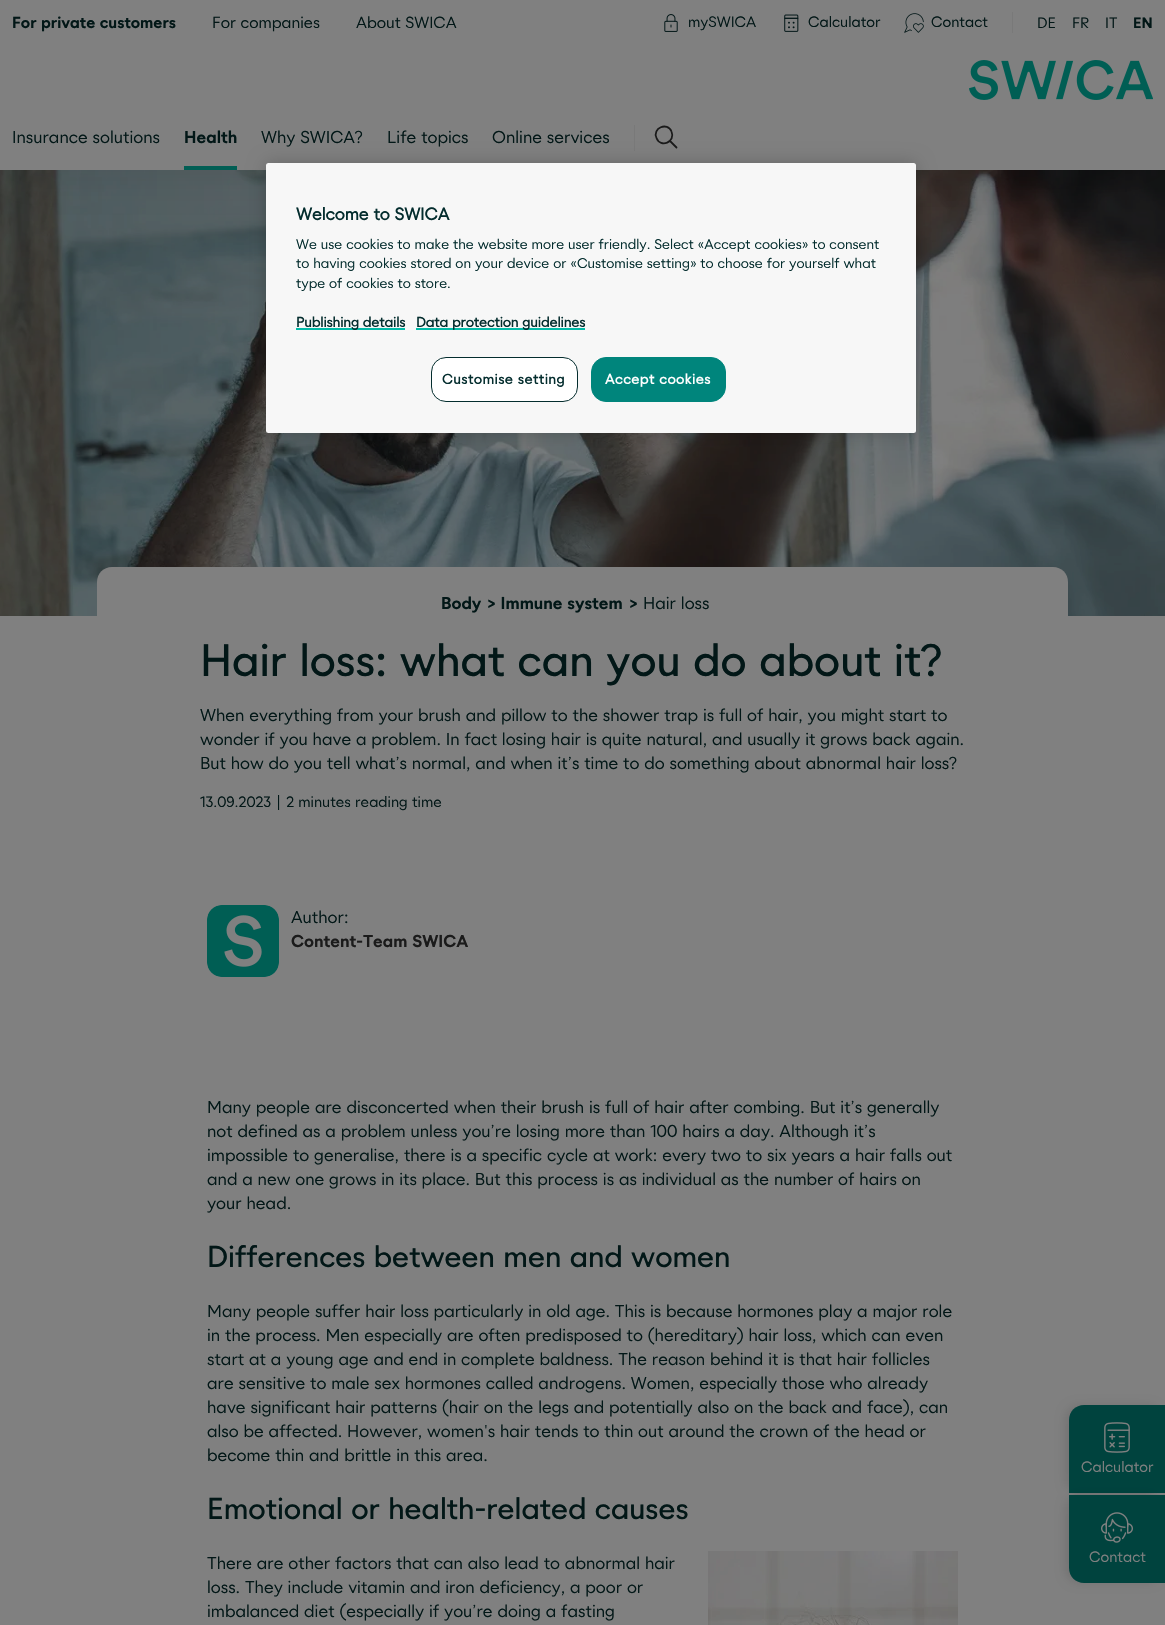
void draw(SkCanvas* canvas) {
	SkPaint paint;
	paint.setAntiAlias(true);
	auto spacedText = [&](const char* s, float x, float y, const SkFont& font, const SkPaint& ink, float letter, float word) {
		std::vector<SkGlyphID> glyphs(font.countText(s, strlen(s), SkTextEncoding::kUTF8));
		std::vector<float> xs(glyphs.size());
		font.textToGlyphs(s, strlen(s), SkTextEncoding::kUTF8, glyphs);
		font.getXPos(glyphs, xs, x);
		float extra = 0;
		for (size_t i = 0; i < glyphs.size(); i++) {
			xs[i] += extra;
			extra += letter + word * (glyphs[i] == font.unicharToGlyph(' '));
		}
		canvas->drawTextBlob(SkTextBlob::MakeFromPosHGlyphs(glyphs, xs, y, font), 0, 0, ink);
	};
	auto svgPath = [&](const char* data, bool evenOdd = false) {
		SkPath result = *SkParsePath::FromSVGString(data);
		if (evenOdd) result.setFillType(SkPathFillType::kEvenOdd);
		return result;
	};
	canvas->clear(0xff808080);
	canvas->drawImageRect(SkImages::DeferredFromEncodedData(SkData::MakeFromFileName("img5.png")), SkRect::MakeXYWH(0, 170, 1165, 446), SkSamplingOptions());
	paint.setColor(0x1a000000);
	paint.setMaskFilter(SkMaskFilter::MakeBlur(kNormal_SkBlurStyle, 25));
	canvas->drawRect(SkRect::MakeXYWH(0, 0, 1165, 170), paint);
	paint.setMaskFilter(nullptr);
	paint.setColor(0xff808080);
	canvas->drawRect(SkRect::MakeXYWH(0, 0, 1165, 170), paint);
	SkFont f1(fontMgr->matchFamilyStyle("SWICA", SkFontStyle::Bold()), 15);
	f1.setSubpixel(true);
	paint.setColor(0xff021717);
	canvas->drawString("For private customers", 12, 28, f1, paint);
	SkFont f2(fontMgr->matchFamilyStyle("SWICA", SkFontStyle::Normal()), 15);
	f2.setSubpixel(true);
	canvas->drawString("For companies", 212, 28, f2, paint);
	canvas->drawString("About SWICA", 356, 28, f2, paint);
	canvas->drawImageRect(SkImages::DeferredFromEncodedData(SkData::MakeFromFileName("img1.png")), SkRect::MakeXYWH(664, 14, 14, 18), SkSamplingOptions());
	SkFont f3(fontMgr->matchFamilyStyle("SWICA", SkFontStyle::Normal()), 14);
	f3.setSubpixel(true);
	canvas->drawString("mySWICA", 688, 27, f3, paint);
	canvas->drawImageRect(SkImages::DeferredFromEncodedData(SkData::MakeFromFileName("img2.png")), SkRect::MakeXYWH(784, 14, 15, 18), SkSamplingOptions());
	canvas->drawString("Calculator", 808, 27, f3, paint);
	canvas->drawImageRect(SkImages::DeferredFromEncodedData(SkData::MakeFromFileName("img3.png")), SkRect::MakeXYWH(904, 13, 20, 20), SkSamplingOptions());
	canvas->drawString("Contact", 931, 27, f3, paint);
	paint.setColor(0xff797979);
	canvas->drawRect(SkRect::MakeXYWH(1012, 12, 1, 21), paint);
	paint.setColor(0xff021717);
	canvas->drawString("DE", 1037, 28, f3, paint);
	canvas->drawString("FR", 1072, 28, f3, paint);
	canvas->drawString("IT", 1105, 28, f3, paint);
	SkFont f4(fontMgr->matchFamilyStyle("SWICA", SkFontStyle::Bold()), 14);
	f4.setSubpixel(true);
	canvas->drawString("EN", 1133, 28, f4, paint);
	canvas->drawImageRect(SkImages::DeferredFromEncodedData(SkData::MakeFromFileName("img4.png")), SkRect::MakeXYWH(969, 60, 184, 40), SkSamplingOptions());
	SkFont f5(fontMgr->matchFamilyStyle("SWICA", SkFontStyle::Normal()), 16);
	f5.setSubpixel(true);
	canvas->drawString("Insurance solutions", 12, 143, f5, paint);
	SkFont f6(fontMgr->matchFamilyStyle("SWICA", SkFontStyle::Bold()), 16);
	f6.setSubpixel(true);
	canvas->drawString("Health", 184, 143, f6, paint);
	paint.setColor(0xff015e54);
	canvas->drawRect(SkRect::MakeXYWH(184, 166, 53, 4), paint);
	paint.setColor(0xff021717);
	canvas->drawString("Why SWICA?", 261, 143, f5, paint);
	canvas->drawString("Life topics", 387, 143, f5, paint);
	canvas->drawString("Online services", 492, 143, f5, paint);
	paint.setColor(0xff797979);
	canvas->drawRect(SkRect::MakeXYWH(634, 125, 1, 26), paint);
	paint.setStroke(true);
	paint.setStrokeWidth(1.8);
	paint.setStrokeCap(SkPaint::kRound_Cap);
	paint.setStrokeJoin(SkPaint::kRound_Join);
	paint.setColor(0xff1a1a1a);
	canvas->drawPath(svgPath("M656.5 138C660.5 148.5 676 142 671.5 131.5C667.5 121.5 652 128 656.5 138ZM670 141L676.5 147.5"), paint);
	paint.setStroke(false);
	paint.setColor(0xff808080);
	canvas->drawPath(svgPath("M112 567H1053C1061.5 567 1068 573.5 1068 582V852H97V582C97 573.5 103.5 567 112 567Z"), paint);
	paint.setColor(0xff021717);
	canvas->drawString("Body", 441, 609, f6, paint);
	canvas->drawString("> Immune system", 487, 609, f6, paint);
	canvas->drawString(">", 629, 609, f6, paint);
	canvas->drawString("Hair loss", 643, 609, f5, paint);
	SkFont f7(fontMgr->matchFamilyStyle("SWICA", SkFontStyle(500, SkFontStyle::kNormal_Width, SkFontStyle::kUpright_Slant)), 42);
	f7.setSubpixel(true);
	canvas->drawString("Hair loss: what can you do about it?", 200, 676, f7, paint);
	canvas->drawString("When everything from your brush and pillow to the shower trap is full of hair, you might start to", 200, 721, f5, paint);
	canvas->drawString("wonder if you have a problem. In fact losing hair is quite natural, and usually it grows back again.", 200, 745, f5, paint);
	canvas->drawString("But how do you tell what’s normal, and when it’s time to do something about abnormal hair loss?", 200, 769, f5, paint);
	canvas->drawString("13.09.2023 | 2 minutes reading time", 200, 807, f3, paint);
	canvas->drawImageRect(SkImages::DeferredFromEncodedData(SkData::MakeFromFileName("img6.png")), SkRect::MakeXYWH(207, 905, 72, 72), SkSamplingOptions());
	canvas->drawString("Author:", 291, 923, f5, paint);
	paint.setColor(0xff1b1b1b);
	canvas->drawString("Content-Team SWICA", 291, 947, f6, paint);
	paint.setColor(0xff021717);
	canvas->drawString("Many people are disconcerted when their brush is full of hair after combing. But it’s generally", 207, 1113, f5, paint);
	canvas->drawString("not defined as a problem unless you’re losing more than 100 hairs a day. Although it’s", 207, 1137, f5, paint);
	canvas->drawString("impossible to generalise, there is a specific cycle at work: every two to six years a hair falls out", 207, 1161, f5, paint);
	canvas->drawString("and a new one grows in its place. But this process is as individual as the number of hairs on", 207, 1185, f5, paint);
	canvas->drawString("your head.", 207, 1209, f5, paint);
	SkFont f8(fontMgr->matchFamilyStyle("SWICA", SkFontStyle(500, SkFontStyle::kNormal_Width, SkFontStyle::kUpright_Slant)), 28);
	f8.setSubpixel(true);
	canvas->drawString("Differences between men and women", 207, 1267, f8, paint);
	canvas->drawString("Many people suffer hair loss particularly in old age. This is because hormones play a major role", 207, 1317, f5, paint);
	canvas->drawString("in the process. Men especially are often predisposed to (hereditary) hair loss, which can even", 207, 1341, f5, paint);
	canvas->drawString("start at a young age and end in complete baldness. The reason behind it is that hair follicles", 207, 1365, f5, paint);
	canvas->drawString("are sensitive to male sex hormones called androgens. Women, especially those who already", 207, 1389, f5, paint);
	canvas->drawString("have significant hair patterns (hair on the legs and potentially also on the back and face), can", 207, 1413, f5, paint);
	canvas->drawString("also be affected. However, women's hair tends to thin out around the crown of the head or", 207, 1437, f5, paint);
	canvas->drawString("become thin and brittle in this area.", 207, 1461, f5, paint);
	canvas->drawString("Emotional or health-related causes", 207, 1519, f8, paint);
	canvas->drawString("There are other factors that can also lead to abnormal hair", 207, 1569, f5, paint);
	canvas->drawImageRect(SkImages::DeferredFromEncodedData(SkData::MakeFromFileName("img7.png")), SkRect::MakeXYWH(708, 1551, 250, 74), SkSamplingOptions());
	canvas->drawString("loss. They include vitamin and iron deficiency, a poor or", 207, 1593, f5, paint);
	canvas->drawString("imbalanced diet (especially if you’re doing a fasting", 207, 1617, f5, paint);
	paint.setColor(0x1a000000);
	paint.setMaskFilter(SkMaskFilter::MakeBlur(kNormal_SkBlurStyle, 5));
	canvas->drawRoundRect(SkRect::MakeXYWH(1065, 1405, 96, 88), 15, 15, paint);
	paint.setMaskFilter(nullptr);
	paint.setColor(0xff00433e);
	canvas->drawPath(svgPath("M1084 1405H1165V1493H1069V1420C1069 1411.5 1075.5 1405 1084 1405Z"), paint);
	canvas->drawImageRect(SkImages::DeferredFromEncodedData(SkData::MakeFromFileName("img8.png")), SkRect::MakeXYWH(1104, 1422, 26, 31), SkSamplingOptions());
	paint.setColor(0xff808080);
	canvas->drawString("Calculator", 1081, 1472, f3, paint);
	paint.setColor(0x1a000000);
	paint.setMaskFilter(SkMaskFilter::MakeBlur(kNormal_SkBlurStyle, 5));
	canvas->drawRoundRect(SkRect::MakeXYWH(1065, 1495, 96, 88), 15, 15, paint);
	paint.setMaskFilter(nullptr);
	paint.setColor(0xff00433e);
	canvas->drawPath(svgPath("M1069 1495H1165V1583H1084C1075.5 1583 1069 1576.5 1069 1568Z"), paint);
	canvas->drawImageRect(SkImages::DeferredFromEncodedData(SkData::MakeFromFileName("img9.png")), SkRect::MakeXYWH(1101, 1512, 32, 31), SkSamplingOptions());
	paint.setColor(0xff808080);
	canvas->drawString("Contact", 1089, 1562, f3, paint);
	paint.setColor(0x33000000);
	paint.setMaskFilter(SkMaskFilter::MakeBlur(kNormal_SkBlurStyle, 9));
	canvas->drawRoundRect(SkRect::MakeXYWH(266, 163, 650, 270), 2.5, 2.5, paint);
	paint.setMaskFilter(nullptr);
	paint.setColor(0xfff7f7f7);
	canvas->drawRoundRect(SkRect::MakeXYWH(266, 163, 650, 270), 2.5, 2.5, paint);
	SkFont f9(fontMgr->matchFamilyStyle("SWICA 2", SkFontStyle::Bold()), 16);
	f9.setSubpixel(true);
	paint.setColor(0xff042d2e);
	canvas->drawString("Welcome to SWICA", 296, 220, f9, paint);
	SkFont f10(fontMgr->matchFamilyStyle("SWICA", SkFontStyle::Normal()), 13);
	f10.setSubpixel(true);
	canvas->drawString("We use cookies to make the website more user friendly. Select «Accept cookies» to consent", 296, 249, f10, paint);
	canvas->drawString("to having cookies stored on your device or «Customise setting» to choose for yourself what", 296, 268, f10, paint);
	canvas->drawString("type of cookies to store.", 296, 288, f10, paint);
	paint.setColor(0xff01bba8);
	canvas->drawRect(SkRect::MakeXYWH(296, 328, 109, 2), paint);
	SkFont f11(fontMgr->matchFamilyStyle("SWICA 2", SkFontStyle::Bold()), 13);
	f11.setSubpixel(true);
	paint.setColor(0xff042d2e);
	canvas->drawString("Publishing details", 296, 327, f11, paint);
	paint.setColor(0xff01bba8);
	canvas->drawRect(SkRect::MakeXYWH(416, 328, 169, 2), paint);
	paint.setColor(0xff042d2e);
	canvas->drawString("Data protection guidelines", 416, 327, f11, paint);
	paint.setColor(0xffffffff);
	canvas->drawRoundRect(SkRect::MakeXYWH(431.5, 357.5, 146, 44), 14.5, 14.5, paint);
	paint.setStroke(true);
	paint.setStrokeWidth(1);
	paint.setStrokeCap(SkPaint::kButt_Cap);
	paint.setStrokeJoin(SkPaint::kMiter_Join);
	paint.setColor(0xff042d2e);
	canvas->drawRoundRect(SkRect::MakeXYWH(431.5, 357.5, 146, 44), 14.5, 14.5, paint);
	paint.setStroke(false);
	spacedText("Customise setting", 442, 384, f11, paint, 0.6, 0);
	paint.setColor(0xff00857c);
	canvas->drawRoundRect(SkRect::MakeXYWH(591.5, 357.5, 134, 44), 14.5, 14.5, paint);
	paint.setStroke(true);
	canvas->drawRoundRect(SkRect::MakeXYWH(591.5, 357.5, 134, 44), 14.5, 14.5, paint);
	paint.setStroke(false);
	paint.setColor(0xffffffff);
	spacedText("Accept cookies", 605, 384, f11, paint, 0.6, 0);
}
